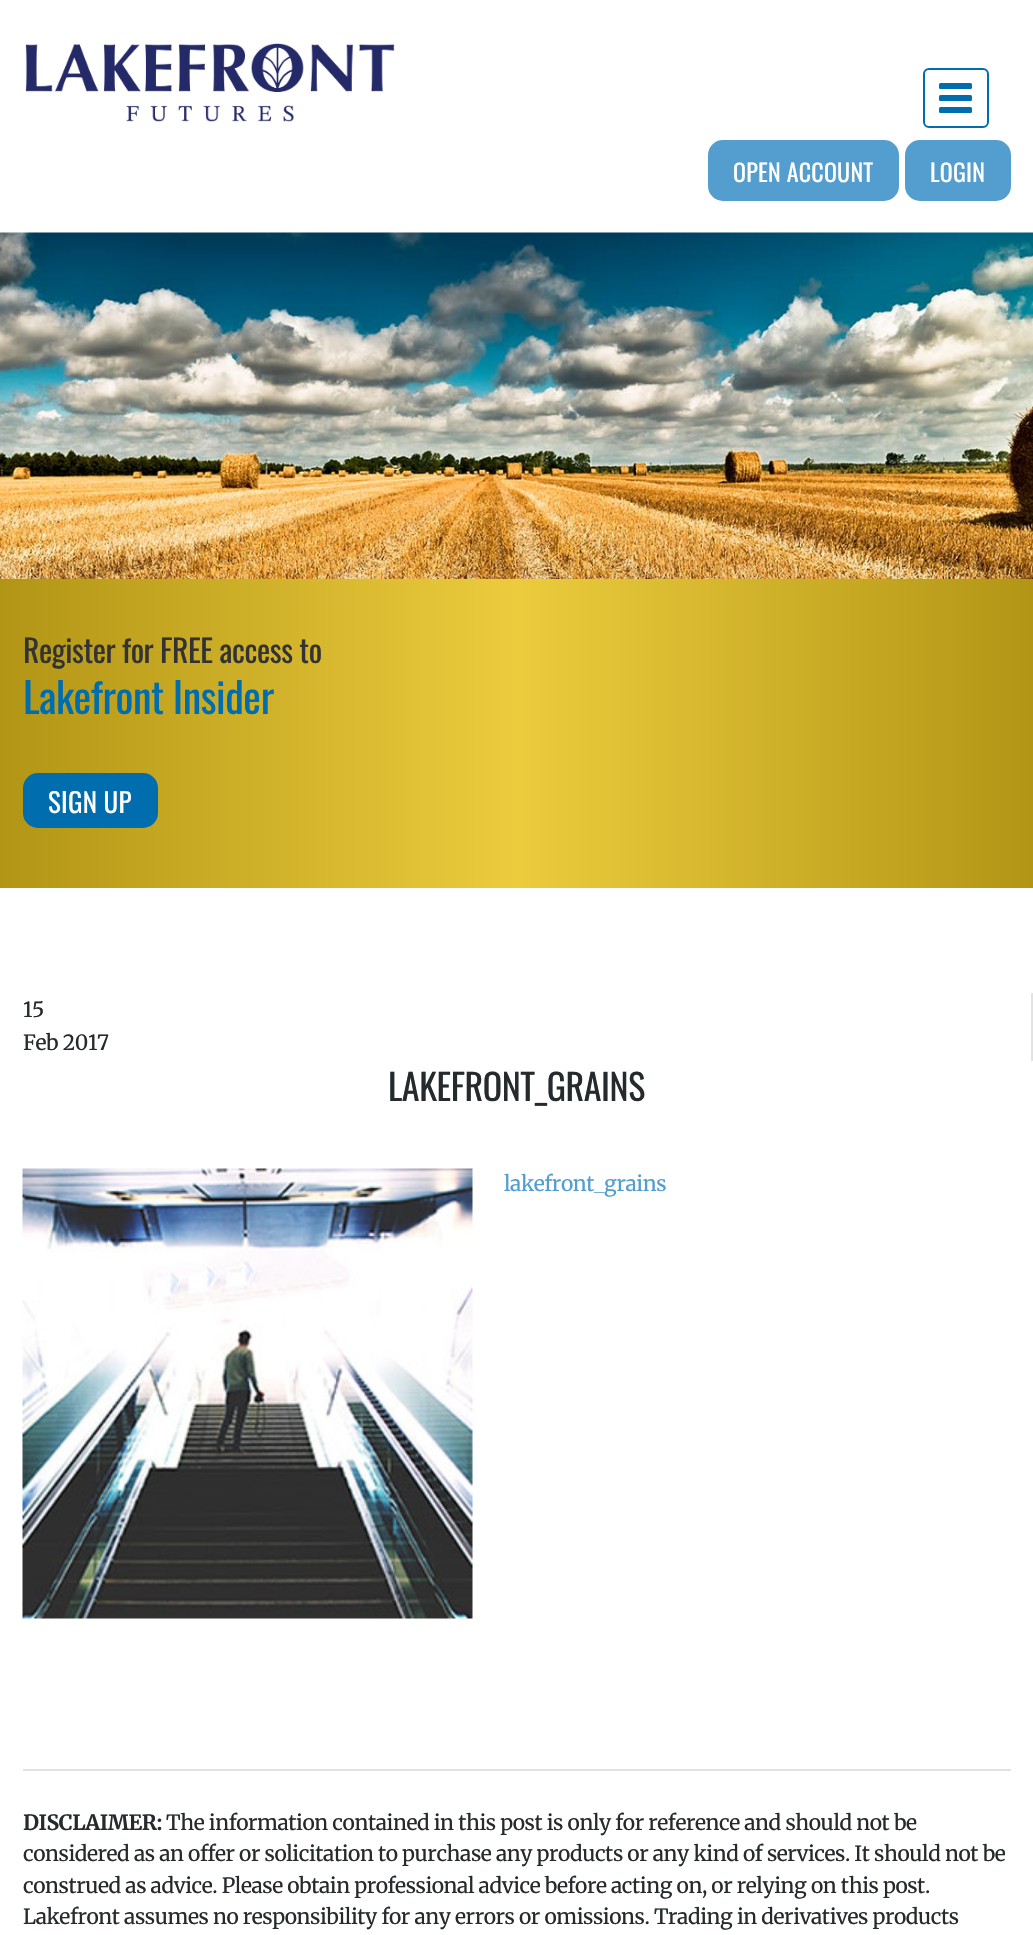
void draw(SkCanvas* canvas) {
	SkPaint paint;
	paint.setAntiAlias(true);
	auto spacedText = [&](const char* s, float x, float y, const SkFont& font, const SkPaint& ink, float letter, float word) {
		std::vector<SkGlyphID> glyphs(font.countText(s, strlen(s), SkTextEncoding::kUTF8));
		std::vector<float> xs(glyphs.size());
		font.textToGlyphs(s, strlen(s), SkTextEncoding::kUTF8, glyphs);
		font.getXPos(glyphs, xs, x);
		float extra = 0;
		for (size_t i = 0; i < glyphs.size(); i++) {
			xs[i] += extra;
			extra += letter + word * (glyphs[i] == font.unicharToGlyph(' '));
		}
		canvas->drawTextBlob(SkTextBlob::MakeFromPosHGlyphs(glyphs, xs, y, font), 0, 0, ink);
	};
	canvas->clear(0xffffffff);
	canvas->drawImageRect(SkImages::DeferredFromEncodedData(SkData::MakeFromFileName("img1.png")), SkRect::MakeXYWH(25, 43, 370, 79), SkSamplingOptions());
	paint.setStroke(true);
	paint.setStrokeWidth(2);
	paint.setColor(0xff006dae);
	canvas->drawRoundRect(SkRect::MakeXYWH(924, 69, 64, 58), 5, 5, paint);
	paint.setStroke(false);
	canvas->drawRoundRect(SkRect::MakeXYWH(939, 83, 33, 6), 1.5, 1.5, paint);
	canvas->drawRoundRect(SkRect::MakeXYWH(939, 95, 33, 6), 1.5, 1.5, paint);
	canvas->drawRoundRect(SkRect::MakeXYWH(939, 107, 33, 6), 1.5, 1.5, paint);
	paint.setColor(0xff539ece);
	canvas->drawRoundRect(SkRect::MakeXYWH(709, 141, 189, 59), 14, 14, paint);
	paint.setStroke(true);
	canvas->drawRoundRect(SkRect::MakeXYWH(709, 141, 189, 59), 14, 14, paint);
	SkFont f1(fontMgr->matchFamilyStyle("Oswald", SkFontStyle::Normal()), 24);
	f1.setSubpixel(true);
	paint.setStroke(false);
	paint.setColor(0xffffffff);
	spacedText("OPEN ACCOUNT", 733, 182, f1, paint, 0.25, 0);
	paint.setColor(0xff539ece);
	canvas->drawRoundRect(SkRect::MakeXYWH(906, 141, 104, 59), 14, 14, paint);
	paint.setStroke(true);
	canvas->drawRoundRect(SkRect::MakeXYWH(906, 141, 104, 59), 14, 14, paint);
	paint.setStroke(false);
	paint.setColor(0xffffffff);
	spacedText("LOGIN", 930, 182, f1, paint, 0.25, 0);
	canvas->drawImageRect(SkImages::DeferredFromEncodedData(SkData::MakeFromFileName("img2.png")), SkRect::MakeXYWH(0, 232, 1033, 347), SkSamplingOptions());
	{
		const SkColor colors[] = {0xffb29515, 0xffeccc3d, 0xffb29515};
		const float stops[] = {0, 0.5, 1};
		const SkPoint ends[] = {{0, 734}, {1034, 734}};
		paint.setShader(SkGradientShader::MakeLinear(ends, colors, stops, 3, SkTileMode::kClamp));
		paint.setAlpha(255);
	}
	canvas->drawRect(SkRect::MakeXYWH(0, 579, 1033, 309), paint);
	SkFont f2(fontMgr->matchFamilyStyle("Oswald", SkFontStyle::Normal()), 31.5);
	f2.setSubpixel(true);
	paint.setShader(nullptr);
	paint.setColor(0xff333333);
	spacedText("Register for FREE access to", 23, 663, f2, paint, -0.42, 0);
	SkFont f3(fontMgr->matchFamilyStyle("Oswald", SkFontStyle::Normal()), 42);
	f3.setSubpixel(true);
	paint.setColor(0xff006dae);
	spacedText("Lakefront Insider", 23, 714, f3, paint, -0.42, 0);
	canvas->drawRoundRect(SkRect::MakeXYWH(24, 774, 133, 53), 14, 14, paint);
	paint.setStroke(true);
	canvas->drawRoundRect(SkRect::MakeXYWH(24, 774, 133, 53), 14, 14, paint);
	SkFont f4(fontMgr->matchFamilyStyle("Oswald", SkFontStyle::Normal()), 27);
	f4.setSubpixel(true);
	paint.setStroke(false);
	paint.setColor(0xffffffff);
	spacedText("SIGN UP", 48, 813, f4, paint, 0.25, 0);
	paint.setColor(0xffe2e2e2);
	canvas->drawRect(SkRect::MakeXYWH(1031, 993, 2, 68), paint);
	SkFont f5(fontMgr->matchFamilyStyle("Merriweather", SkFontStyle::Normal()), 21);
	f5.setSubpixel(true);
	paint.setColor(0xff252a2c);
	spacedText("15", 23, 1017, f5, paint, -0.42, 0);
	spacedText("Feb 2017", 23, 1050, f5, paint, -0.42, 0);
	SkFont f6(fontMgr->matchFamilyStyle("Oswald", SkFontStyle::Normal()), 36);
	f6.setSubpixel(true);
	spacedText("LAKEFRONT_GRAINS", 388, 1101, f6, paint, -0.42, 0);
	canvas->drawImageRect(SkImages::DeferredFromEncodedData(SkData::MakeFromFileName("img3.png")), SkRect::MakeXYWH(22, 1168, 451, 451), SkSamplingOptions());
	paint.setColor(0xff539ece);
	spacedText("lakefront_grains", 504, 1191, f5, paint, -0.42, 0);
	paint.setColor(0xffe2e2e2);
	canvas->drawRect(SkRect::MakeXYWH(23, 1769, 988, 2), paint);
	SkFont f7(fontMgr->matchFamilyStyle("Merriweather", SkFontStyle::Bold()), 21);
	f7.setSubpixel(true);
	paint.setColor(0xff252a2c);
	spacedText("DISCLAIMER:", 23, 1830, f7, paint, -0.42, 0);
	spacedText("The information contained in this post is only for reference and should not be", 166, 1830, f5, paint, -0.42, 0);
	spacedText("considered as an offer or solicitation to purchase any products or any kind of services. It should not be", 23, 1861, f5, paint, -0.42, 0);
	spacedText("construed as advice. Please obtain professional advice before acting on, or relying on this post.", 23, 1893, f5, paint, -0.42, 0);
	spacedText("Lakefront assumes no responsibility for any errors or omissions. Trading in derivatives products", 23, 1924, f5, paint, -0.42, 0);
}
